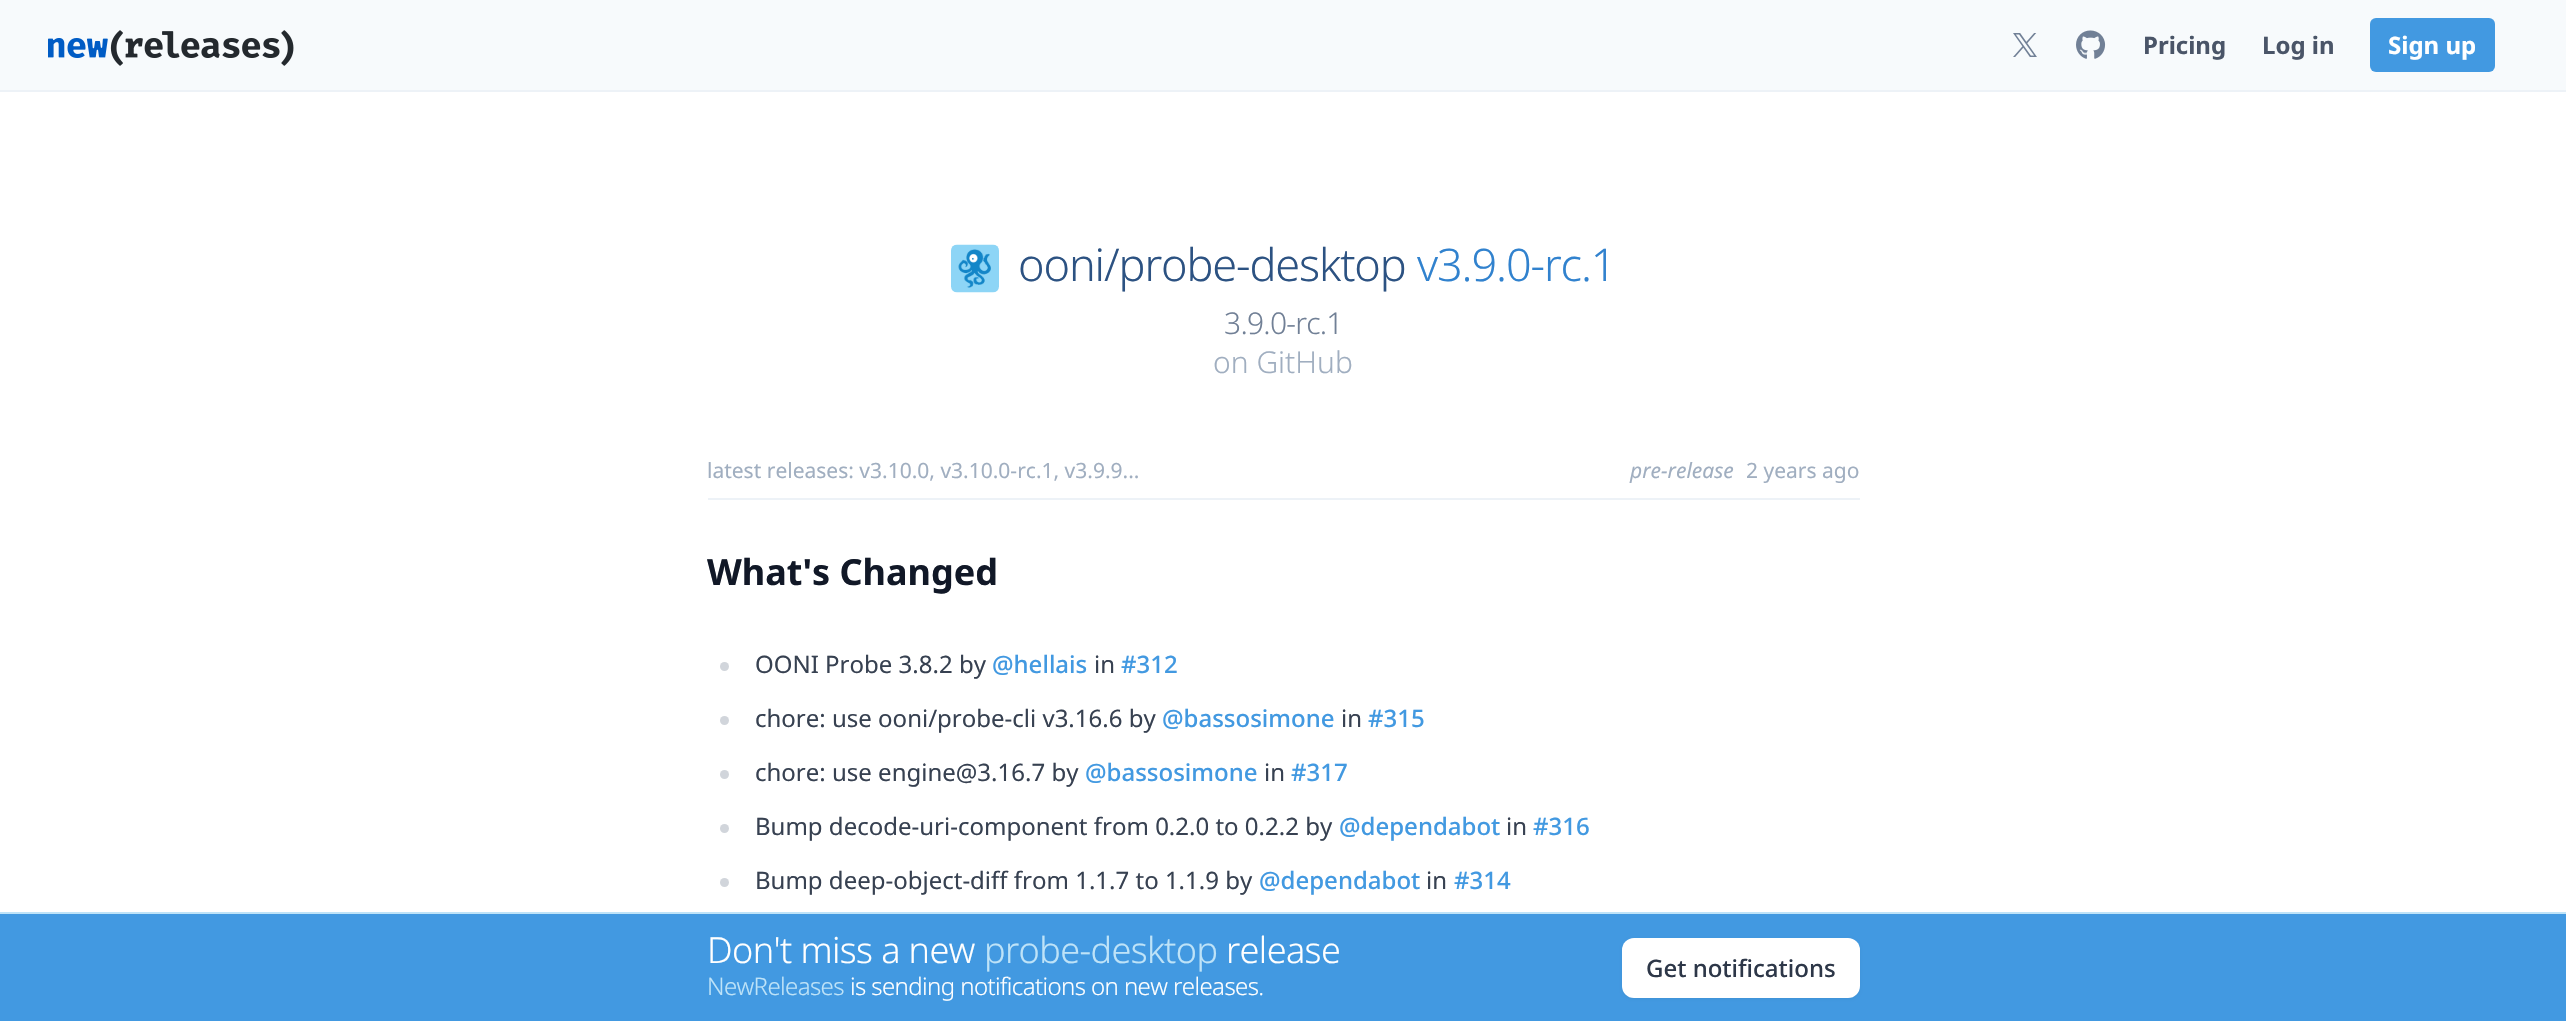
void draw(SkCanvas* canvas) {
	SkPaint paint;
	paint.setAntiAlias(true);
	auto spacedText = [&](const char* s, float x, float y, const SkFont& font, const SkPaint& ink, float letter, float word) {
		std::vector<SkGlyphID> glyphs(font.countText(s, strlen(s), SkTextEncoding::kUTF8));
		std::vector<float> xs(glyphs.size());
		font.textToGlyphs(s, strlen(s), SkTextEncoding::kUTF8, glyphs);
		font.getXPos(glyphs, xs, x);
		float extra = 0;
		for (size_t i = 0; i < glyphs.size(); i++) {
			xs[i] += extra;
			extra += letter + word * (glyphs[i] == font.unicharToGlyph(' '));
		}
		canvas->drawTextBlob(SkTextBlob::MakeFromPosHGlyphs(glyphs, xs, y, font), 0, 0, ink);
	};
	canvas->clear(0xfff7fafc);
	canvas->drawImageRect(SkImages::DeferredFromEncodedData(SkData::MakeFromFileName("img1.png")), SkRect::MakeXYWH(48, 30, 246, 36), SkSamplingOptions());
	canvas->drawImageRect(SkImages::DeferredFromEncodedData(SkData::MakeFromFileName("img2.png")), SkRect::MakeXYWH(2013, 33, 24, 24), SkSamplingOptions());
	canvas->drawImageRect(SkImages::DeferredFromEncodedData(SkData::MakeFromFileName("img3.png")), SkRect::MakeXYWH(2076, 30, 30, 29), SkSamplingOptions());
	SkFont f1(fontMgr->matchFamilyStyle("Noto Sans", SkFontStyle::Bold()), 24);
	f1.setSubpixel(true);
	paint.setColor(0xff4a5568);
	canvas->drawString("Pricing", 2143, 54, f1, paint);
	canvas->drawString("Log in", 2262, 54, f1, paint);
	paint.setColor(0xff4299e1);
	canvas->drawRoundRect(SkRect::MakeXYWH(2370, 18, 125, 54), 6, 6, paint);
	paint.setColor(0xffffffff);
	canvas->drawString("Sign up", 2388, 54, f1, paint);
	canvas->drawRect(SkRect::MakeXYWH(0, 92, 2566, 820), paint);
	paint.setColor(0xffedf2f7);
	canvas->drawRect(SkRect::MakeXYWH(0, 90, 2566, 2), paint);
	canvas->drawImageRect(SkImages::DeferredFromEncodedData(SkData::MakeFromFileName("img4.png")), SkRect::MakeXYWH(951, 244, 48, 49), SkSamplingOptions());
	SkFont f2(fontMgr->matchFamilyStyle("Noto Sans", SkFontStyle(300, SkFontStyle::kNormal_Width, SkFontStyle::kUpright_Slant)), 45);
	f2.setSubpixel(true);
	paint.setColor(0xff2c5282);
	spacedText("ooni/probe-desktop", 1018, 281, f2, paint, -1.1, 0);
	paint.setColor(0xff3182ce);
	spacedText("v3.9.0-rc.1", 1417, 281, f2, paint, -1.1, 0);
	SkFont f3(fontMgr->matchFamilyStyle("Noto Sans", SkFontStyle(300, SkFontStyle::kNormal_Width, SkFontStyle::kUpright_Slant)), 30);
	f3.setSubpixel(true);
	paint.setColor(0xff718096);
	spacedText("3.9.0-rc.1", 1224, 334, f3, paint, -0.75, 0);
	paint.setColor(0xffa0aec0);
	canvas->drawString("on GitHub", 1213, 373, f3, paint);
	paint.setColor(0xffedf2f7);
	canvas->drawRect(SkRect::MakeXYWH(708, 498, 1152, 2), paint);
	SkFont f4(fontMgr->matchFamilyStyle("Noto Sans", SkFontStyle::Normal()), 21);
	f4.setSubpixel(true);
	paint.setColor(0xffa0aec0);
	canvas->drawString("latest releases: v3.10.0, v3.10.0-rc.1, v3.9.9...", 707, 478, f4, paint);
	SkFont f5(fontMgr->matchFamilyStyle("Noto Sans", SkFontStyle::Italic()), 21);
	f5.setSubpixel(true);
	canvas->drawString("pre-release", 1630, 478, f5, paint);
	canvas->drawString("2 years ago", 1746, 478, f4, paint);
	SkFont f6(fontMgr->matchFamilyStyle("Noto Sans", SkFontStyle::Bold()), 36);
	f6.setSubpixel(true);
	paint.setColor(0xff111827);
	canvas->drawString("What's Changed", 707, 585, f6, paint);
	paint.setColor(0xffd1d5db);
	canvas->drawCircle(724.5, 666.5, 4.5, paint);
	SkFont f7(fontMgr->matchFamilyStyle("Noto Sans", SkFontStyle::Normal()), 24);
	f7.setSubpixel(true);
	paint.setColor(0xff374151);
	canvas->drawString("OONI Probe 3.8.2 by", 755, 673, f7, paint);
	SkFont f8(fontMgr->matchFamilyStyle("Noto Sans", SkFontStyle(500, SkFontStyle::kNormal_Width, SkFontStyle::kUpright_Slant)), 24);
	f8.setSubpixel(true);
	paint.setColor(0xff4299e1);
	canvas->drawString("@hellais", 992, 673, f8, paint);
	paint.setColor(0xff374151);
	canvas->drawString("in", 1094, 673, f7, paint);
	paint.setColor(0xff4299e1);
	canvas->drawString("#312", 1121, 673, f8, paint);
	paint.setColor(0xffd1d5db);
	canvas->drawCircle(724.5, 720.5, 4.5, paint);
	paint.setColor(0xff374151);
	canvas->drawString("chore: use ooni/probe-cli v3.16.6 by", 755, 727, f7, paint);
	paint.setColor(0xff4299e1);
	canvas->drawString("@bassosimone", 1162, 727, f8, paint);
	paint.setColor(0xff374151);
	canvas->drawString("in", 1341, 727, f7, paint);
	paint.setColor(0xff4299e1);
	canvas->drawString("#315", 1368, 727, f8, paint);
	paint.setColor(0xffd1d5db);
	canvas->drawCircle(724.5, 774.5, 4.5, paint);
	paint.setColor(0xff374151);
	canvas->drawString("chore: use engine@3.16.7 by", 755, 781, f7, paint);
	paint.setColor(0xff4299e1);
	canvas->drawString("@bassosimone", 1085, 781, f8, paint);
	paint.setColor(0xff374151);
	canvas->drawString("in", 1264, 781, f7, paint);
	paint.setColor(0xff4299e1);
	canvas->drawString("#317", 1291, 781, f8, paint);
	paint.setColor(0xffd1d5db);
	canvas->drawCircle(724.5, 828.5, 4.5, paint);
	paint.setColor(0xff374151);
	canvas->drawString("Bump decode-uri-component from 0.2.0 to 0.2.2 by", 755, 835, f7, paint);
	paint.setColor(0xff4299e1);
	canvas->drawString("@dependabot", 1339, 835, f8, paint);
	paint.setColor(0xff374151);
	canvas->drawString("in", 1506, 835, f7, paint);
	paint.setColor(0xff4299e1);
	canvas->drawString("#316", 1533, 835, f8, paint);
	paint.setColor(0xffd1d5db);
	canvas->drawCircle(724.5, 882.5, 4.5, paint);
	paint.setColor(0xff374151);
	canvas->drawString("Bump deep-object-diff from 1.1.7 to 1.1.9 by", 755, 889, f7, paint);
	paint.setColor(0xff4299e1);
	canvas->drawString("@dependabot", 1259, 889, f8, paint);
	paint.setColor(0xff374151);
	canvas->drawString("in", 1426, 889, f7, paint);
	paint.setColor(0xff4299e1);
	canvas->drawString("#314", 1454, 889, f8, paint);
	canvas->drawRect(SkRect::MakeXYWH(0, 914, 2566, 107), paint);
	paint.setColor(0xffbee3f8);
	canvas->drawRect(SkRect::MakeXYWH(0, 912, 2566, 2), paint);
	SkFont f9(fontMgr->matchFamilyStyle("Noto Sans", SkFontStyle(300, SkFontStyle::kNormal_Width, SkFontStyle::kUpright_Slant)), 36);
	f9.setSubpixel(true);
	paint.setColor(0xffffffff);
	spacedText("Don't miss a new", 707, 963, f9, paint, -0.6, 0);
	paint.setColor(0xffbee3f8);
	spacedText("probe-desktop", 984, 963, f9, paint, -0.6, 0);
	paint.setColor(0xffffffff);
	spacedText("release", 1226, 963, f9, paint, -0.6, 0);
	SkFont f10(fontMgr->matchFamilyStyle("Noto Sans", SkFontStyle(300, SkFontStyle::kNormal_Width, SkFontStyle::kUpright_Slant)), 24);
	f10.setSubpixel(true);
	paint.setColor(0xffbee3f8);
	spacedText("NewReleases", 707, 995, f10, paint, -0.6, 0);
	paint.setColor(0xffffffff);
	spacedText("is sending notifications on new releases.", 850, 995, f10, paint, -0.6, 0);
	paint.setColor(0x0d000000);
	paint.setMaskFilter(SkMaskFilter::MakeBlur(kNormal_SkBlurStyle, 1.5));
	canvas->drawRoundRect(SkRect::MakeXYWH(1622, 939, 238, 60), 12, 12, paint);
	paint.setMaskFilter(nullptr);
	paint.setColor(0xffffffff);
	canvas->drawRoundRect(SkRect::MakeXYWH(1622, 938, 238, 60), 12, 12, paint);
	paint.setColor(0xff2d3748);
	canvas->drawString("Get notifications", 1646, 977, f8, paint);
}
